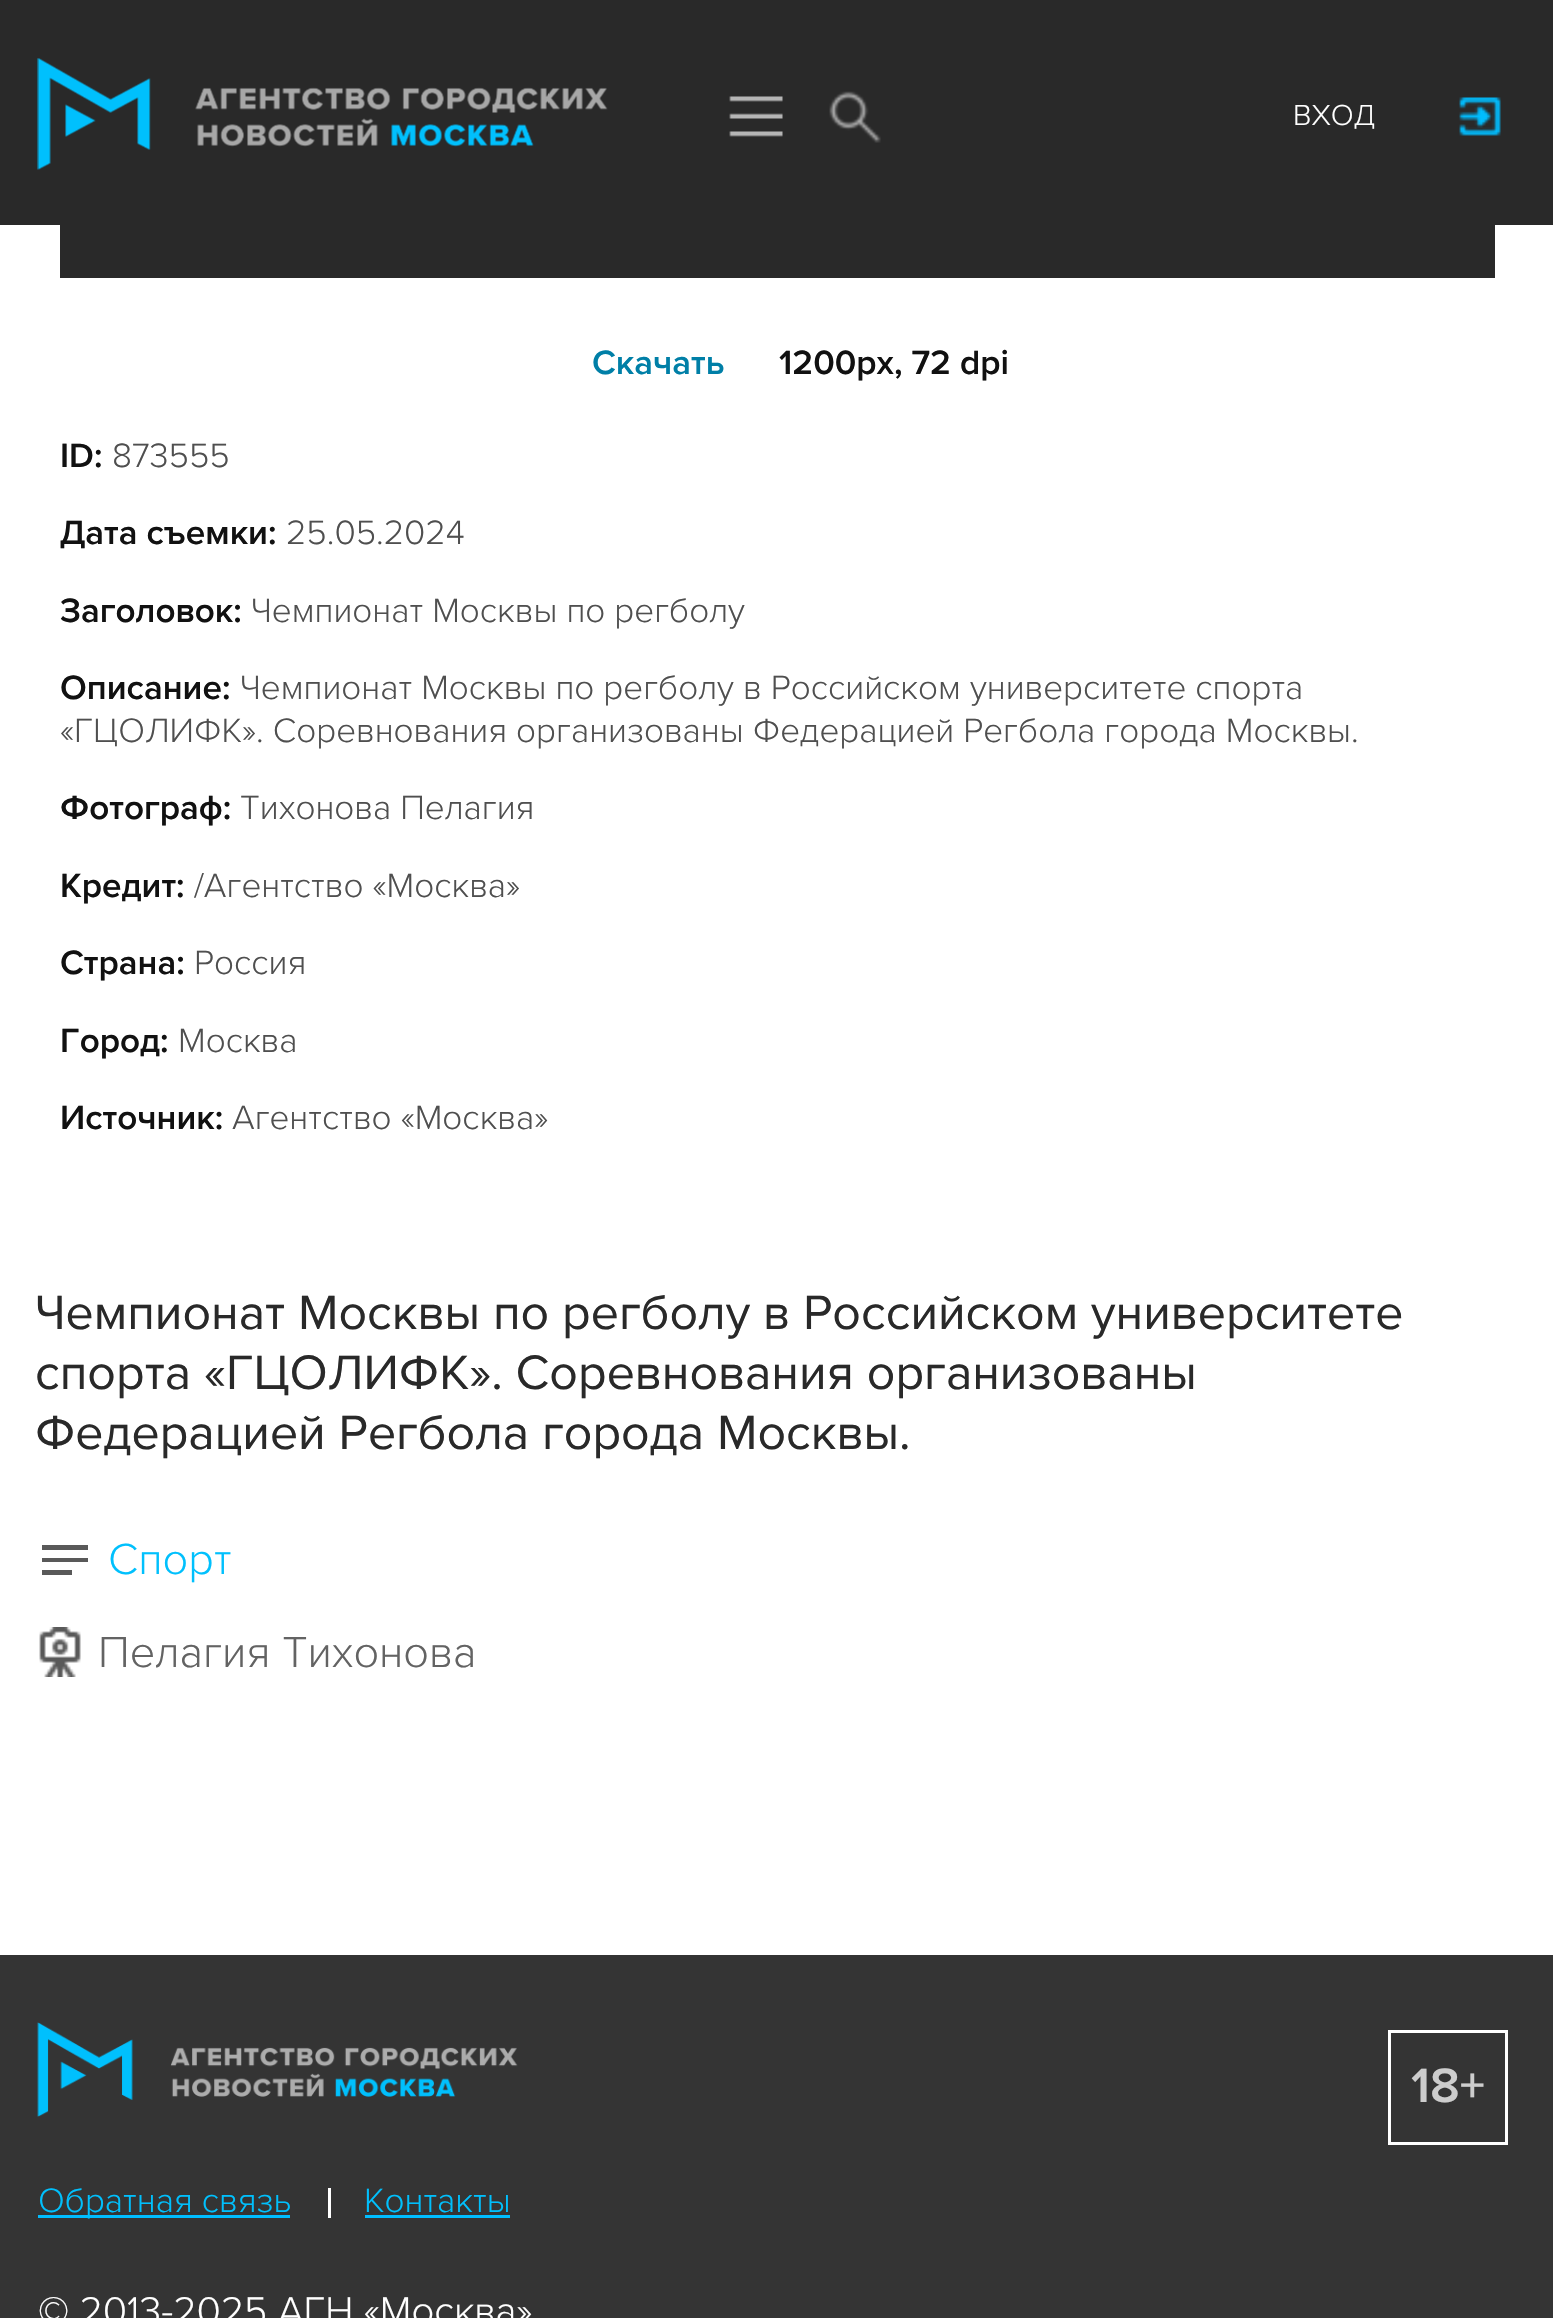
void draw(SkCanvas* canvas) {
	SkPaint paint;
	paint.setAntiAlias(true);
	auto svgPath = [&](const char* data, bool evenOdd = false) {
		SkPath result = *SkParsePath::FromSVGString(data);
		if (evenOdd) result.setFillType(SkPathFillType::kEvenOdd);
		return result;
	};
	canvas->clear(0xffffffff);
	paint.setColor(0xff292929);
	canvas->drawRect(SkRect::MakeXYWH(0, 0, 1553, 225), paint);
	canvas->drawImageRect(SkImages::DeferredFromEncodedData(SkData::MakeFromFileName("img1.png")), SkRect::MakeXYWH(37, 58, 571, 112), SkSamplingOptions());
	canvas->drawImageRect(SkImages::DeferredFromEncodedData(SkData::MakeFromFileName("img2.png")), SkRect::MakeXYWH(729, 96, 54, 41), SkSamplingOptions());
	canvas->drawImageRect(SkImages::DeferredFromEncodedData(SkData::MakeFromFileName("img3.png")), SkRect::MakeXYWH(829, 91, 52, 52), SkSamplingOptions());
	canvas->drawImageRect(SkImages::DeferredFromEncodedData(SkData::MakeFromFileName("img4.png")), SkRect::MakeXYWH(1459, 97, 42, 39), SkSamplingOptions());
	SkFont f1(fontMgr->matchFamilyStyle("Proxima Nova", SkFontStyle(300, SkFontStyle::kNormal_Width, SkFontStyle::kUpright_Slant)), 30);
	f1.setSubpixel(true);
	paint.setColor(0xffffffff);
	canvas->drawString("ВХОД", 1293, 125, f1, paint);
	paint.setColor(0xff292929);
	canvas->drawRect(SkRect::MakeXYWH(60, 225, 1435, 53), paint);
	SkFont f2(fontMgr->matchFamilyStyle("Proxima Nova", SkFontStyle(600, SkFontStyle::kNormal_Width, SkFontStyle::kUpright_Slant)), 35);
	f2.setSubpixel(true);
	paint.setColor(0xff007fa7);
	canvas->drawString("Cкачать", 592, 374, f2, paint);
	paint.setColor(0xff111111);
	canvas->drawString("1200px, 72 dpi", 779, 374, f2, paint);
	canvas->drawString("ID:", 60, 467, f2, paint);
	SkFont f3(fontMgr->matchFamilyStyle("Proxima Nova", SkFontStyle(300, SkFontStyle::kNormal_Width, SkFontStyle::kUpright_Slant)), 35);
	f3.setSubpixel(true);
	paint.setColor(0xff4f4f4f);
	canvas->drawString("873555", 112, 467, f3, paint);
	paint.setColor(0xff111111);
	canvas->drawString("Дата съемки:", 60, 544, f2, paint);
	paint.setColor(0xff4f4f4f);
	canvas->drawString("25.05.2024", 286, 544, f3, paint);
	paint.setColor(0xff111111);
	canvas->drawString("Заголовок:", 60, 622, f2, paint);
	paint.setColor(0xff4f4f4f);
	canvas->drawString("Чемпионат Москвы по регболу", 251, 622, f3, paint);
	paint.setColor(0xff111111);
	canvas->drawString("Описание:", 60, 699, f2, paint);
	paint.setColor(0xff4f4f4f);
	canvas->drawString("Чемпионат Москвы по регболу в Российском университете спорта", 240, 699, f3, paint);
	canvas->drawString("«ГЦОЛИФК». Соревнования организованы Федерацией Регбола города Москвы.", 60, 742, f3, paint);
	paint.setColor(0xff111111);
	canvas->drawString("Фотограф:", 60, 819, f2, paint);
	paint.setColor(0xff4f4f4f);
	canvas->drawString("Тихонова Пелагия", 240, 819, f3, paint);
	paint.setColor(0xff111111);
	canvas->drawString("Кредит:", 60, 897, f2, paint);
	paint.setColor(0xff4f4f4f);
	canvas->drawString("/Агентство «Москва»", 194, 897, f3, paint);
	paint.setColor(0xff111111);
	canvas->drawString("Страна:", 60, 974, f2, paint);
	paint.setColor(0xff4f4f4f);
	canvas->drawString("Россия", 194, 974, f3, paint);
	paint.setColor(0xff111111);
	canvas->drawString("Город:", 60, 1052, f2, paint);
	paint.setColor(0xff4f4f4f);
	canvas->drawString("Москва", 178, 1052, f3, paint);
	paint.setColor(0xff111111);
	canvas->drawString("Источник:", 60, 1129, f2, paint);
	paint.setColor(0xff4f4f4f);
	canvas->drawString("Агентство «Москва»", 232, 1129, f3, paint);
	SkFont f4(fontMgr->matchFamilyStyle("Proxima Nova", SkFontStyle::Normal()), 50);
	f4.setSubpixel(true);
	paint.setColor(0xff292929);
	canvas->drawString("Чемпионат Москвы по регболу в Российском университете", 35, 1329, f4, paint);
	canvas->drawString("спорта «ГЦОЛИФК». Соревнования организованы", 35, 1389, f4, paint);
	canvas->drawString("Федерацией Регбола города Москвы.", 35, 1449, f4, paint);
	paint.setColor(0xff595959);
	canvas->drawPath(svgPath("M88 1558H42V1562H88ZM42 1570H72V1575H42ZM88 1545H42V1550H88Z"), paint);
	SkFont f5(fontMgr->matchFamilyStyle("Proxima Nova", SkFontStyle(300, SkFontStyle::kNormal_Width, SkFontStyle::kUpright_Slant)), 45);
	f5.setSubpixel(true);
	paint.setColor(0xff00c0fd);
	canvas->drawString("Спорт", 108, 1574, f5, paint);
	canvas->drawImageRect(SkImages::DeferredFromEncodedData(SkData::MakeFromFileName("img5.png")), SkRect::MakeXYWH(39, 1627, 42, 50), SkSamplingOptions());
	paint.setColor(0xff636363);
	canvas->drawString("Пелагия Тихонова", 98, 1667, f5, paint);
	paint.setColor(0xff343434);
	canvas->drawRect(SkRect::MakeXYWH(0, 1955, 1553, 363), paint);
	paint.setStroke(true);
	paint.setStrokeWidth(3);
	paint.setColor(0xffffffff);
	canvas->drawRect(SkRect::MakeXYWH(1389.5, 2031.5, 117, 112), paint);
	SkFont f6(fontMgr->matchFamilyStyle("Proxima Nova", SkFontStyle(600, SkFontStyle::kNormal_Width, SkFontStyle::kUpright_Slant)), 50);
	f6.setSubpixel(true);
	paint.setStroke(false);
	paint.setColor(0xffcdcdcd);
	canvas->drawString("18+", 1411, 2102, f6, paint);
	canvas->drawImageRect(SkImages::DeferredFromEncodedData(SkData::MakeFromFileName("img6.png")), SkRect::MakeXYWH(37, 2022, 481, 95), SkSamplingOptions());
	paint.setColor(0xff00bdff);
	canvas->drawRect(SkRect::MakeXYWH(38, 2215, 252, 3), paint);
	paint.setColor(0xff00c0fd);
	canvas->drawString("Обратная связь", 38, 2212, f3, paint);
	paint.setColor(0xffffffff);
	canvas->drawRect(SkRect::MakeXYWH(328, 2188, 3, 30), paint);
	paint.setColor(0xff00c0fd);
	canvas->drawString("Контакты", 364, 2212, f3, paint);
	paint.setColor(0xff00bdff);
	canvas->drawRect(SkRect::MakeXYWH(365, 2215, 145, 3), paint);
	SkFont f7(fontMgr->matchFamilyStyle("Proxima Nova", SkFontStyle(300, SkFontStyle::kNormal_Width, SkFontStyle::kUpright_Slant)), 40);
	f7.setSubpixel(true);
	paint.setColor(0xffffffff);
	canvas->drawString("© 2013-2025 АГН «Москва»", 38, 2324, f7, paint);
}
